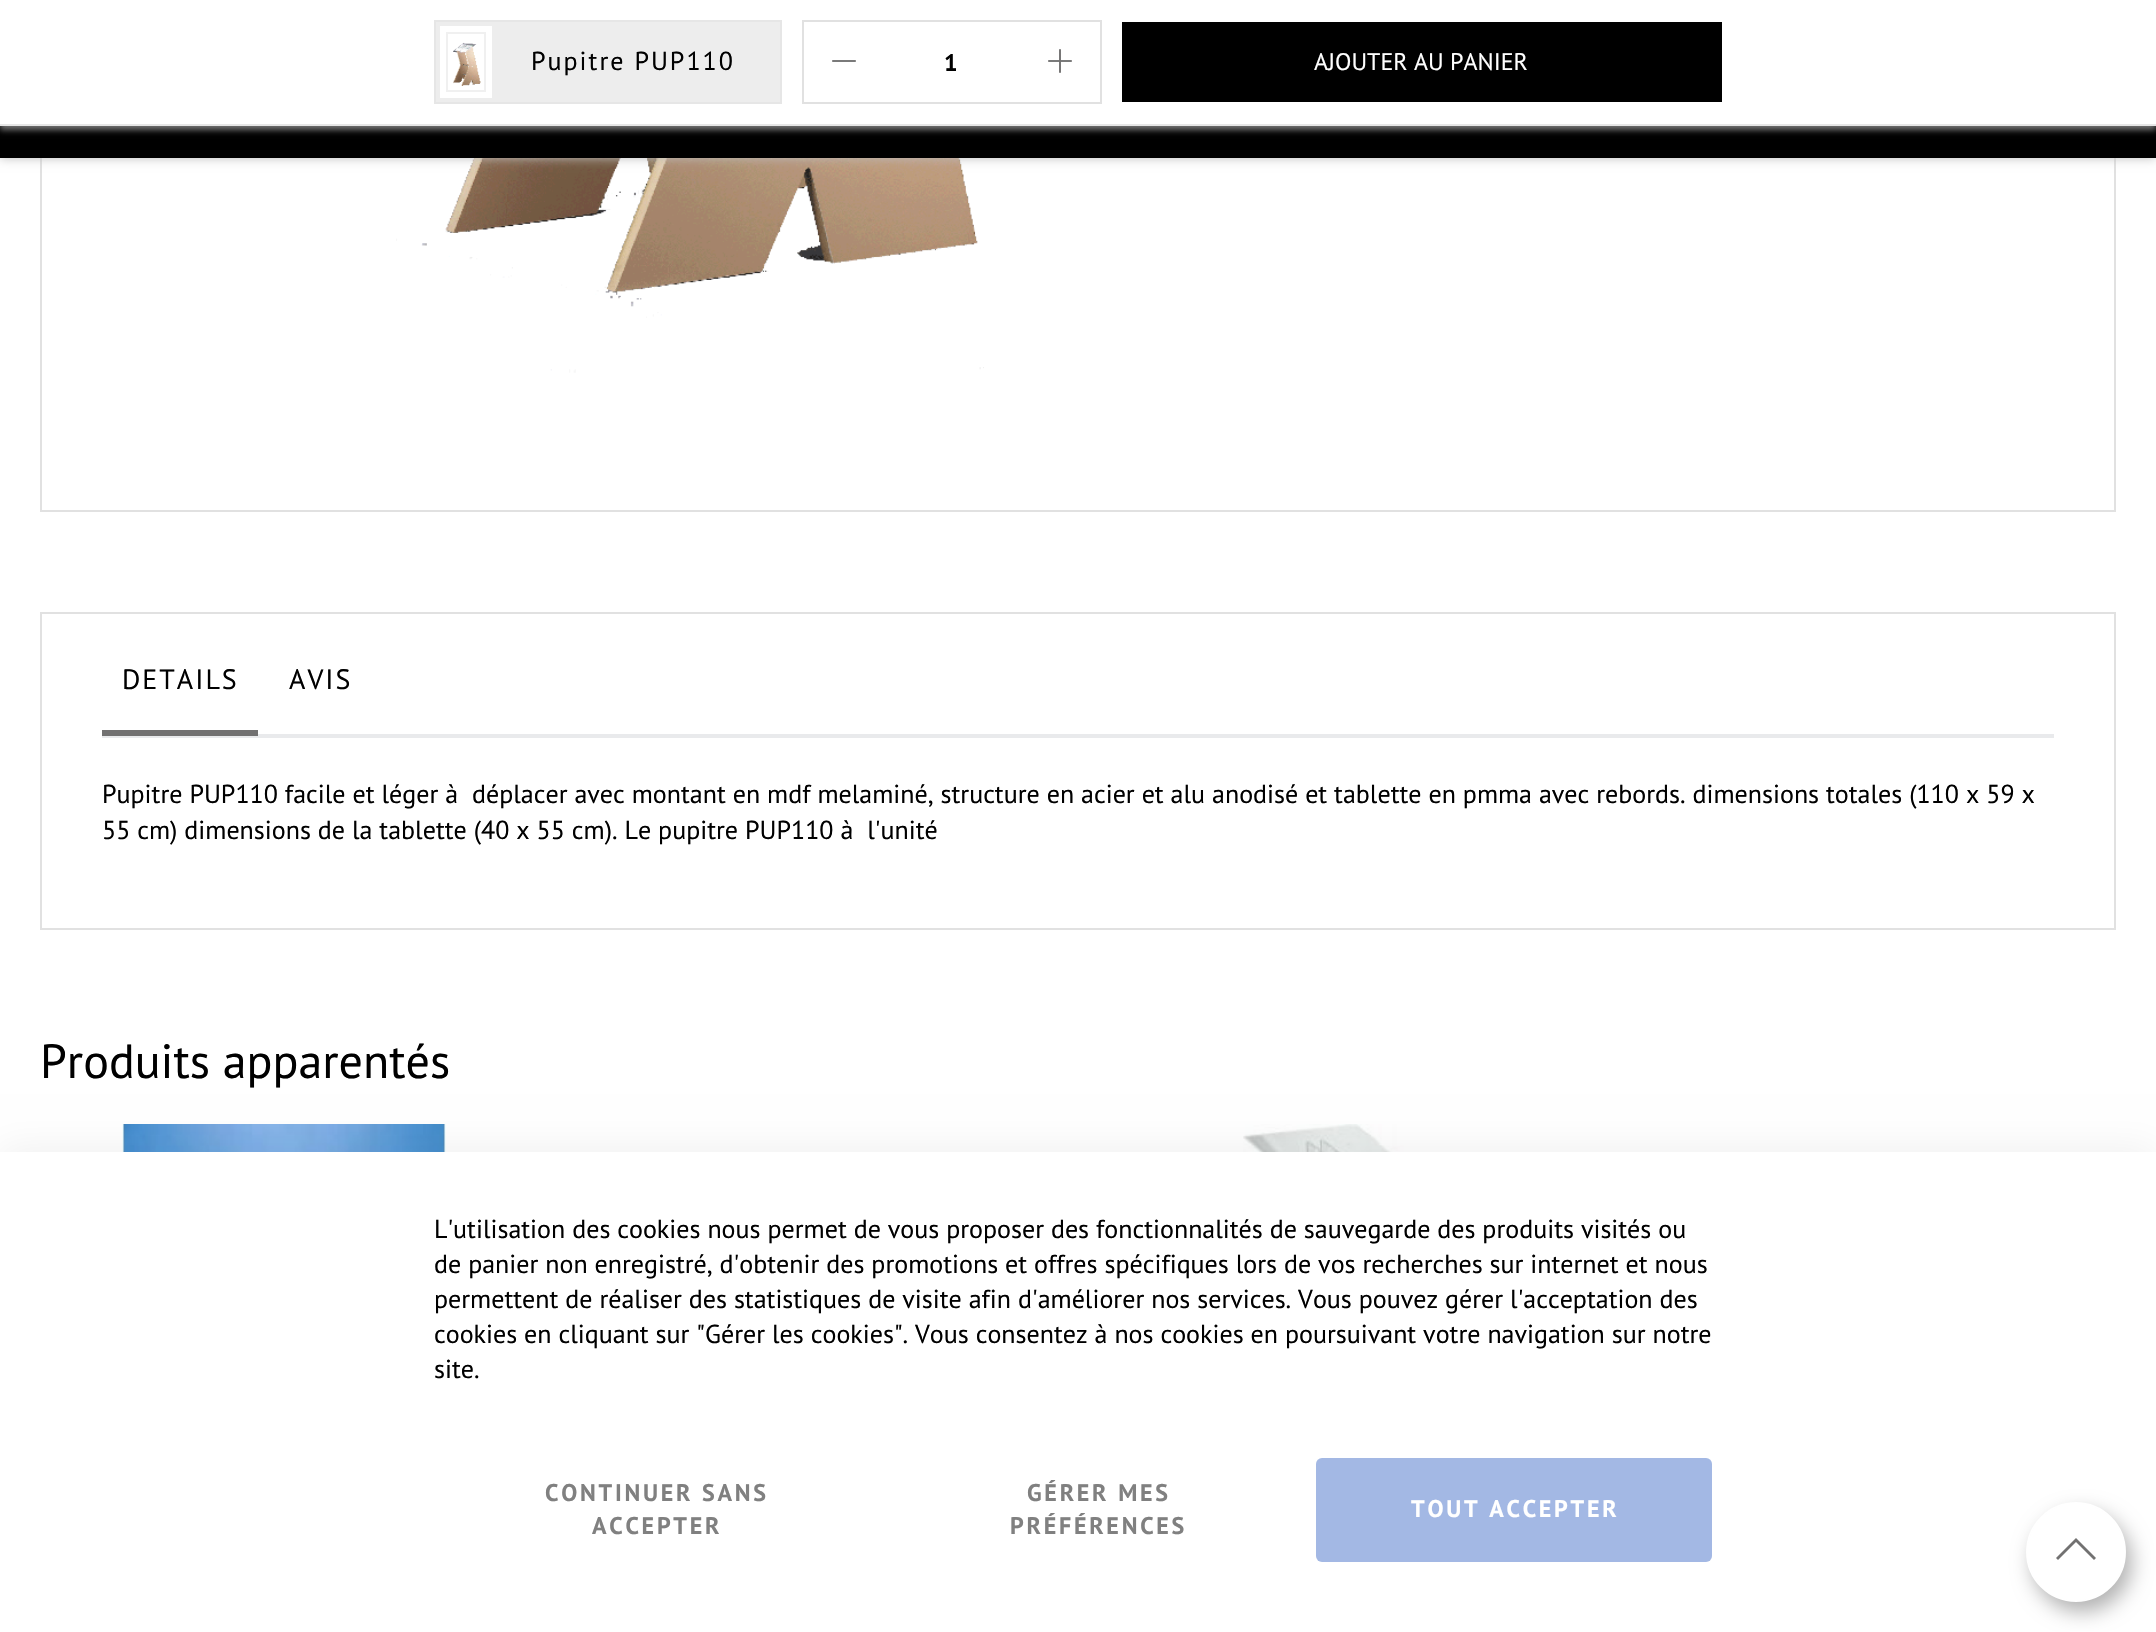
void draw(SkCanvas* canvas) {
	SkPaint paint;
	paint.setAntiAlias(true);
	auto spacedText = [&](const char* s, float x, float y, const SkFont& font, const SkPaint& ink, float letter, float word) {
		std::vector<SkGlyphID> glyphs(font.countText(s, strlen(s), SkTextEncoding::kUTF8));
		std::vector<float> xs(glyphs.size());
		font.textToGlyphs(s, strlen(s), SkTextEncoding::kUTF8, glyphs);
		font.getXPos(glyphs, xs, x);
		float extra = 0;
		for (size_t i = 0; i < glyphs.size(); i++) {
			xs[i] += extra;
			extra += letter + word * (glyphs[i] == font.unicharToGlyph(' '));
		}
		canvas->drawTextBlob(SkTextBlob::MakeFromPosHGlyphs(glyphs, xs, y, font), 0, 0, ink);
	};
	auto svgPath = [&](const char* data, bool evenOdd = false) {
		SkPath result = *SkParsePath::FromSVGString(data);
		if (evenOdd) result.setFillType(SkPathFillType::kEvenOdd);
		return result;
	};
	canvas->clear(0xffffffff);
	paint.setStroke(true);
	paint.setStrokeWidth(2);
	paint.setColor(0xffe1e1e1);
	canvas->drawRect(SkRect::MakeXYWH(41, -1, 2074, 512), paint);
	canvas->drawImageRect(SkImages::DeferredFromEncodedData(SkData::MakeFromFileName("img4.png")), SkRect::MakeXYWH(396, 158, 588, 215), SkSamplingOptions());
	paint.setStroke(false);
	paint.setColor(0xffbdbdbd);
	paint.setMaskFilter(SkMaskFilter::MakeBlur(kNormal_SkBlurStyle, 5));
	canvas->drawRect(SkRect::MakeXYWH(0, 0, 2156, 158), paint);
	paint.setMaskFilter(nullptr);
	paint.setColor(0xff000000);
	canvas->drawRect(SkRect::MakeXYWH(0, 126, 2156, 32), paint);
	paint.setColor(0x80e6e6e6);
	paint.setMaskFilter(SkMaskFilter::MakeBlur(kNormal_SkBlurStyle, 3));
	canvas->drawRect(SkRect::MakeXYWH(0, 4, 2156, 126), paint);
	paint.setMaskFilter(nullptr);
	paint.setColor(0xffffffff);
	canvas->drawRect(SkRect::MakeXYWH(0, 0, 2156, 124), paint);
	paint.setColor(0xffe6e6e6);
	canvas->drawRect(SkRect::MakeXYWH(0, 124, 2156, 2), paint);
	paint.setColor(0xffededed);
	canvas->drawRect(SkRect::MakeXYWH(435, 21, 346, 82), paint);
	paint.setStroke(true);
	paint.setColor(0xffe6e6e6);
	canvas->drawRect(SkRect::MakeXYWH(435, 21, 346, 82), paint);
	paint.setStroke(false);
	paint.setColor(0xffffffff);
	canvas->drawRect(SkRect::MakeXYWH(440, 26, 52, 72), paint);
	paint.setStroke(true);
	paint.setColor(0xfff0f0f0);
	canvas->drawRect(SkRect::MakeXYWH(447, 33, 38, 58), paint);
	canvas->drawImageRect(SkImages::DeferredFromEncodedData(SkData::MakeFromFileName("img1.png")), SkRect::MakeXYWH(453, 42, 28, 44), SkSamplingOptions());
	SkFont f1(fontMgr->matchFamilyStyle("PT Sans", SkFontStyle::Normal()), 26);
	f1.setSubpixel(true);
	paint.setStroke(false);
	paint.setColor(0xff000000);
	spacedText("Pupitre PUP110", 531, 70, f1, paint, 2, 0);
	paint.setStroke(true);
	paint.setColor(0xffe1e1e1);
	canvas->drawRect(SkRect::MakeXYWH(803, 21, 298, 82), paint);
	canvas->drawImageRect(SkImages::DeferredFromEncodedData(SkData::MakeFromFileName("img2.png")), SkRect::MakeXYWH(832, 60, 24, 2), SkSamplingOptions());
	SkFont f2(fontMgr->matchFamilyStyle("PT Sans", SkFontStyle::Bold()), 24);
	f2.setSubpixel(true);
	paint.setStroke(false);
	paint.setColor(0xff000000);
	canvas->drawString("1", 944, 71, f2, paint);
	canvas->drawImageRect(SkImages::DeferredFromEncodedData(SkData::MakeFromFileName("img3.png")), SkRect::MakeXYWH(1048, 49, 24, 24), SkSamplingOptions());
	canvas->drawRect(SkRect::MakeXYWH(1122, 22, 600, 80), paint);
	SkFont f3(fontMgr->matchFamilyStyle("PT Sans", SkFontStyle::Normal()), 24);
	f3.setSubpixel(true);
	paint.setColor(0xffffffff);
	canvas->drawString("AJOUTER AU PANIER", 1314, 70, f3, paint);
	paint.setStroke(true);
	paint.setColor(0xffe1e1e1);
	canvas->drawRect(SkRect::MakeXYWH(41, 613, 2074, 316), paint);
	SkFont f4(fontMgr->matchFamilyStyle("PT Sans", SkFontStyle::Normal()), 28);
	f4.setSubpixel(true);
	paint.setStroke(false);
	paint.setColor(0xff000000);
	spacedText("DETAILS", 122, 689, f4, paint, 2, 0);
	paint.setColor(0xffe9eaec);
	canvas->drawRect(SkRect::MakeXYWH(102, 734, 1952, 4), paint);
	paint.setColor(0xff727171);
	canvas->drawRect(SkRect::MakeXYWH(102, 730, 156, 6), paint);
	paint.setColor(0xff000000);
	spacedText("AVIS", 289, 689, f4, paint, 2, 0);
	canvas->drawString("Pupitre PUP110 facile et léger à  déplacer avec montant en mdf melaminé, structure en acier et alu anodisé et tablette en pmma avec rebords. dimensions totales (110 x 59 x", 102, 803, f1, paint);
	canvas->drawString("55 cm) dimensions de la tablette (40 x 55 cm). Le pupitre PUP110 à  l'unité", 102, 839, f1, paint);
	SkFont f5(fontMgr->matchFamilyStyle("PT Sans", SkFontStyle::Normal()), 48);
	f5.setSubpixel(true);
	canvas->drawString("Produits apparentés", 40, 1078, f5, paint);
	canvas->drawImageRect(SkImages::DeferredFromEncodedData(SkData::MakeFromFileName("img5.png")), SkRect::MakeXYWH(122, 1124, 324, 28), SkSamplingOptions());
	canvas->drawImageRect(SkImages::DeferredFromEncodedData(SkData::MakeFromFileName("img6.png")), SkRect::MakeXYWH(1243, 1124, 192, 28), SkSamplingOptions());
	paint.setColor(0x0f000000);
	paint.setMaskFilter(SkMaskFilter::MakeBlur(kNormal_SkBlurStyle, 18));
	canvas->drawRect(SkRect::MakeXYWH(0, 1148, 2156, 480), paint);
	paint.setMaskFilter(nullptr);
	paint.setColor(0xffffffff);
	canvas->drawRect(SkRect::MakeXYWH(0, 1152, 2156, 480), paint);
	paint.setColor(0xff000000);
	canvas->drawString("L'utilisation des cookies nous permet de vous proposer des fonctionnalités de sauvegarde des produits visités ou", 434, 1238, f1, paint);
	canvas->drawString("de panier non enregistré, d'obtenir des promotions et offres spécifiques lors de vos recherches sur internet et nous", 434, 1273, f1, paint);
	canvas->drawString("permettent de réaliser des statistiques de visite afin d'améliorer nos services. Vous pouvez gérer l'acceptation des", 434, 1308, f1, paint);
	canvas->drawString("cookies en cliquant sur \"Gérer les cookies\". Vous consentez à nos cookies en poursuivant votre navigation sur notre", 434, 1343, f1, paint);
	canvas->drawString("site.", 434, 1378, f1, paint);
	paint.setColor(0xff808080);
	spacedText("CONTINUER SANS", 545, 1501, f2, paint, 2.75, 0);
	spacedText("ACCEPTER", 592, 1534, f2, paint, 2.75, 0);
	spacedText("GÉRER MES", 1027, 1501, f2, paint, 2.75, 0);
	spacedText("PRÉFÉRENCES", 1010, 1534, f2, paint, 2.75, 0);
	paint.setColor(0xffa3b8e4);
	canvas->drawRoundRect(SkRect::MakeXYWH(1316, 1458, 396, 104), 6, 6, paint);
	paint.setColor(0xffffffff);
	spacedText("TOUT ACCEPTER", 1411, 1517, f2, paint, 2.75, 0);
	paint.setColor(0x4d000000);
	paint.setMaskFilter(SkMaskFilter::MakeBlur(kNormal_SkBlurStyle, 10));
	canvas->drawRoundRect(SkRect::MakeXYWH(2032, 1512, 100, 100), 50, 50, paint);
	paint.setMaskFilter(nullptr);
	paint.setColor(0xffffffff);
	canvas->drawCircle(2076, 1552, 49, paint);
	paint.setStroke(true);
	canvas->drawCircle(2076, 1552, 49, paint);
	paint.setStroke(false);
	paint.setColor(0xff727171);
	canvas->drawPath(svgPath("M2076 1538L2056 1558L2058 1560L2076 1542L2094 1560L2096 1558Z"), paint);
}
